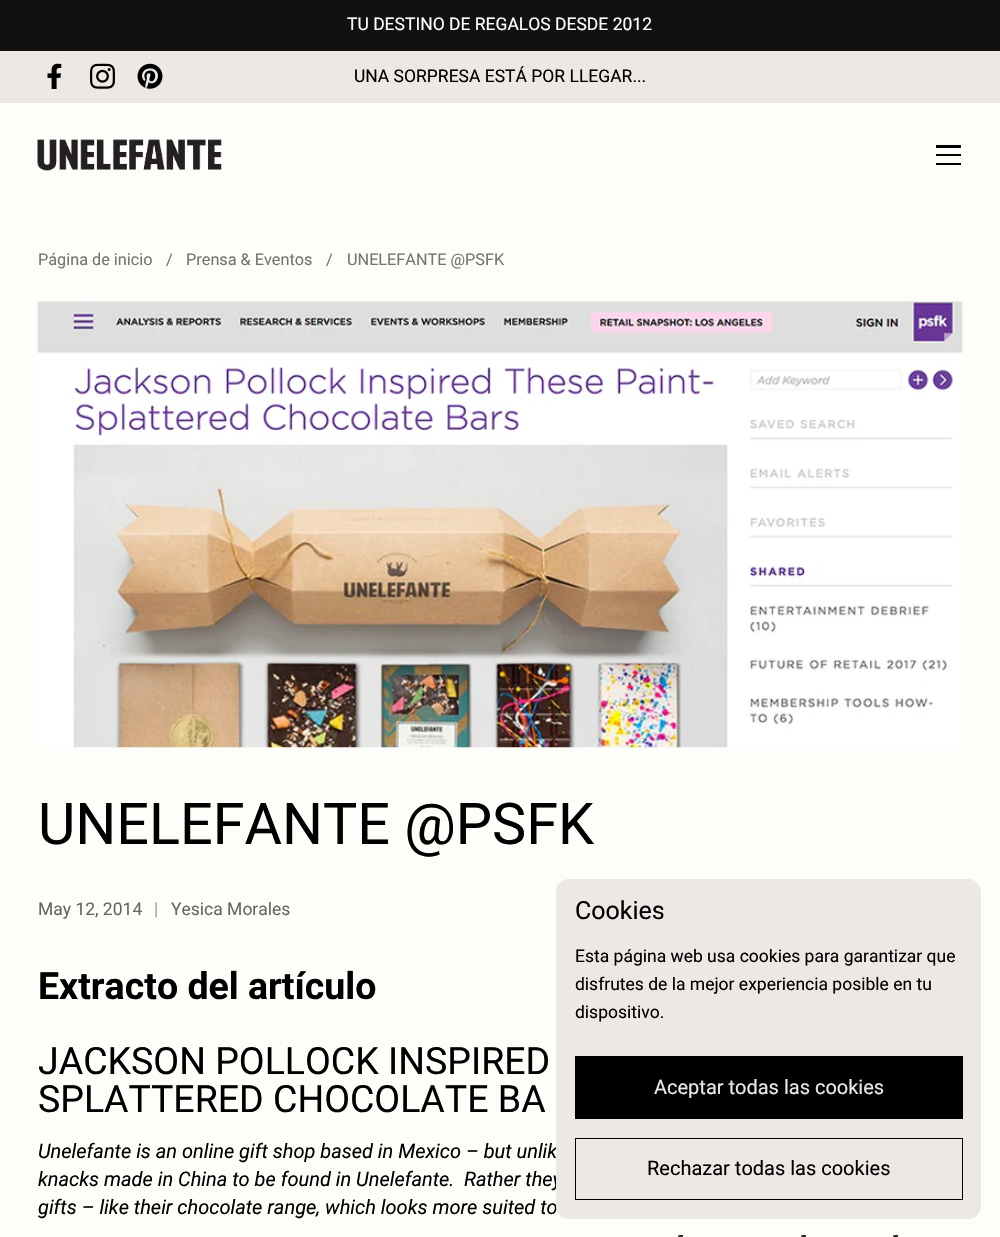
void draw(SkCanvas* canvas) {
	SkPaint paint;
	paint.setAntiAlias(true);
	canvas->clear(0xfffdfdf9);
	paint.setColor(0xff111111);
	canvas->drawRect(SkRect::MakeXYWH(0, 0, 1000, 51), paint);
	SkFont f1(fontMgr->matchFamilyStyle("Roboto", SkFontStyle::Normal()), 17.5);
	f1.setSubpixel(true);
	paint.setColor(0xffffffff);
	canvas->drawString("TU DESTINO DE REGALOS DESDE 2012", 347, 30, f1, paint);
	paint.setColor(0xffede8e4);
	canvas->drawRect(SkRect::MakeXYWH(0, 51, 1000, 52), paint);
	canvas->drawImageRect(SkImages::DeferredFromEncodedData(SkData::MakeFromFileName("img1.png")), SkRect::MakeXYWH(47, 63, 15, 26), SkSamplingOptions());
	canvas->drawImageRect(SkImages::DeferredFromEncodedData(SkData::MakeFromFileName("img2.png")), SkRect::MakeXYWH(90, 63, 25, 26), SkSamplingOptions());
	canvas->drawImageRect(SkImages::DeferredFromEncodedData(SkData::MakeFromFileName("img3.png")), SkRect::MakeXYWH(137, 63, 26, 26), SkSamplingOptions());
	paint.setColor(0xff000000);
	canvas->drawString("UNA SORPRESA ESTÁ POR LLEGAR...", 354, 82, f1, paint);
	canvas->drawImageRect(SkImages::DeferredFromEncodedData(SkData::MakeFromFileName("img4.png")), SkRect::MakeXYWH(37, 139, 185, 32), SkSamplingOptions());
	canvas->drawRect(SkRect::MakeXYWH(936, 145, 25, 3), paint);
	canvas->drawRect(SkRect::MakeXYWH(936, 154, 25, 2), paint);
	canvas->drawRect(SkRect::MakeXYWH(936, 163, 25, 2), paint);
	SkFont f2(fontMgr->matchFamilyStyle("Roboto", SkFontStyle::Normal()), 16.25);
	f2.setSubpixel(true);
	paint.setColor(0xff747473);
	canvas->drawString("Página de inicio", 38, 265, f2, paint);
	canvas->drawString("/", 166, 265, f2, paint);
	canvas->drawString("Prensa & Eventos", 186, 265, f2, paint);
	canvas->drawString("/", 326, 265, f2, paint);
	canvas->drawString("UNELEFANTE @PSFK", 347, 265, f2, paint);
	canvas->drawImageRect(SkImages::DeferredFromEncodedData(SkData::MakeFromFileName("img5.png")), SkRect::MakeXYWH(37, 301, 926, 447), SkSamplingOptions());
	SkFont f3(fontMgr->matchFamilyStyle("Roboto", SkFontStyle::Normal()), 57.5);
	f3.setSubpixel(true);
	paint.setColor(0xff000000);
	canvas->drawString("UNELEFANTE @PSFK", 38, 844, f3, paint);
	paint.setColor(0xff656564);
	canvas->drawString("May 12, 2014", 38, 915, f1, paint);
	paint.setColor(0xff9f9f9d);
	canvas->drawString("|", 154, 915, f1, paint);
	paint.setColor(0xff656564);
	canvas->drawString("Yesica Morales", 171, 915, f1, paint);
	SkFont f4(fontMgr->matchFamilyStyle("Roboto", SkFontStyle::Bold()), 37.5);
	f4.setSubpixel(true);
	paint.setColor(0xff000000);
	canvas->drawString("Extracto del artículo", 38, 999, f4, paint);
	SkFont f5(fontMgr->matchFamilyStyle("Roboto", SkFontStyle::Normal()), 37.5);
	f5.setSubpixel(true);
	canvas->drawString("JACKSON POLLOCK INSPIRED", 38, 1074, f5, paint);
	canvas->drawString("SPLATTERED CHOCOLATE BA", 38, 1112, f5, paint);
	SkFont f6(fontMgr->matchFamilyStyle("Roboto", SkFontStyle::Italic()), 20);
	f6.setSubpixel(true);
	canvas->drawString("Unelefante is an online gift shop based in Mexico – but unlik", 38, 1158, f6, paint);
	canvas->drawString("knacks made in China to be found in Unelefante.", 38, 1186, f6, paint);
	canvas->drawString("Rather they", 464, 1186, f6, paint);
	canvas->drawString("gifts – like their chocolate range, which looks more suited to", 38, 1214, f6, paint);
	canvas->drawString("-", 678, 1242, f6, paint);
	canvas->drawString("-", 801, 1242, f6, paint);
	canvas->drawString("-", 893, 1242, f6, paint);
	paint.setColor(0xffede8e5);
	canvas->drawRoundRect(SkRect::MakeXYWH(556, 879, 425, 340), 13, 13, paint);
	SkFont f7(fontMgr->matchFamilyStyle("Roboto", SkFontStyle::Normal()), 25);
	f7.setSubpixel(true);
	paint.setColor(0xff000000);
	canvas->drawString("Cookies", 575, 919, f7, paint);
	canvas->drawString("Esta página web usa cookies para garantizar que", 575, 962, f1, paint);
	canvas->drawString("disfrutes de la mejor experiencia posible en tu", 575, 990, f1, paint);
	canvas->drawString("dispositivo.", 575, 1018, f1, paint);
	canvas->drawRect(SkRect::MakeXYWH(575, 1056, 388, 63), paint);
	SkFont f8(fontMgr->matchFamilyStyle("Roboto", SkFontStyle::Normal()), 20);
	f8.setSubpixel(true);
	paint.setColor(0xffede8e5);
	canvas->drawString("Aceptar todas las cookies", 654, 1094, f8, paint);
	paint.setStroke(true);
	paint.setStrokeWidth(1);
	paint.setColor(0xff000000);
	canvas->drawRect(SkRect::MakeXYWH(575.5, 1138.5, 387, 61), paint);
	paint.setStroke(false);
	canvas->drawString("Rechazar todas las cookies", 647, 1175, f8, paint);
}
